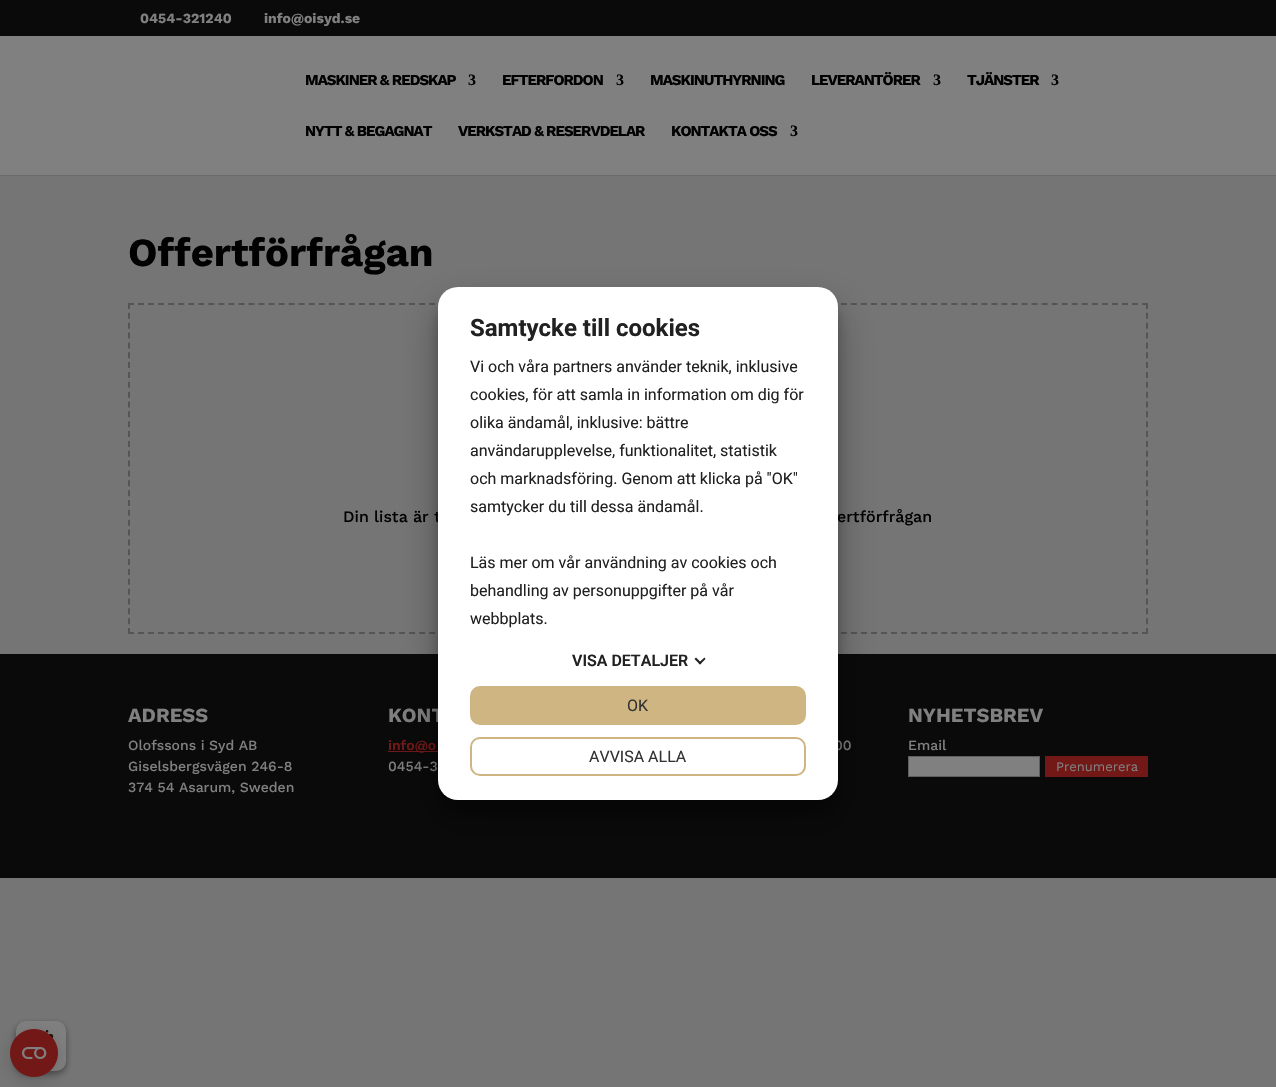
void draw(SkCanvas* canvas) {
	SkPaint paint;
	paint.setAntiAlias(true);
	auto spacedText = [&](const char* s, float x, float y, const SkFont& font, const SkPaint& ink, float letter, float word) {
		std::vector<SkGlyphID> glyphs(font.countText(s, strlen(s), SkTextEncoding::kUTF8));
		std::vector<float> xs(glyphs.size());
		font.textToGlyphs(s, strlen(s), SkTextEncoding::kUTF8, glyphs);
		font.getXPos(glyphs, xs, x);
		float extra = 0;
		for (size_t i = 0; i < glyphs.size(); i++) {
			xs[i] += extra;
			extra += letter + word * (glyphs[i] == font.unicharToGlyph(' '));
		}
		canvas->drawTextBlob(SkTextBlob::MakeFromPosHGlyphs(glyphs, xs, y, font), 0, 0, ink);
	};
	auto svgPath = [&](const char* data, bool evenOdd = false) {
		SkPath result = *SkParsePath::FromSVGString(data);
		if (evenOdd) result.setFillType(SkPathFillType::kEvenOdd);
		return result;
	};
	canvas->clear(0xff767575);
	paint.setColor(0xff0a0a0a);
	canvas->drawRect(SkRect::MakeXYWH(0, 0, 1276, 36), paint);
	SkFont f1(fontMgr->matchFamilyStyle("Work Sans", SkFontStyle::Bold()), 14);
	f1.setSubpixel(true);
	paint.setColor(0xff808080);
	canvas->drawString("0454-321240", 140, 23, f1, paint);
	canvas->drawString("info@oisyd.se", 264, 23, f1, paint);
	paint.setColor(0xff6a6a6a);
	canvas->drawRect(SkRect::MakeXYWH(0, 175, 1276, 1), paint);
	paint.setColor(0xff808080);
	canvas->drawRect(SkRect::MakeXYWH(0, 36, 1276, 139), paint);
	SkFont f2(fontMgr->matchFamilyStyle("Work Sans", SkFontStyle::Bold()), 15);
	f2.setSubpixel(true);
	paint.setColor(0xff010101);
	spacedText("MASKINER & REDSKAP", 305, 85, f2, paint, -1, 0);
	SkFont f3(fontMgr->matchFamilyStyle("Liberation Serif", SkFontStyle::Bold()), 16);
	f3.setSubpixel(true);
	spacedText("3", 468, 85, f3, paint, -1, 0);
	spacedText("EFTERFORDON", 502, 85, f2, paint, -1, 0);
	spacedText("3", 616, 85, f3, paint, -1, 0);
	spacedText("MASKINUTHYRNING", 650, 85, f2, paint, -1, 0);
	spacedText("LEVERANTÖRER", 811, 85, f2, paint, -1, 0);
	spacedText("3", 933, 85, f3, paint, -1, 0);
	spacedText("TJÄNSTER", 967, 85, f2, paint, -1, 0);
	spacedText("3", 1051, 85, f3, paint, -1, 0);
	spacedText("NYTT & BEGAGNAT", 305, 136, f2, paint, -1, 0);
	spacedText("VERKSTAD & RESERVDELAR", 458, 136, f2, paint, -1, 0);
	spacedText("KONTAKTA OSS", 671, 136, f2, paint, -1, 0);
	spacedText("3", 790, 136, f3, paint, -1, 0);
	SkFont f4(fontMgr->matchFamilyStyle("Work Sans", SkFontStyle::Bold()), 40);
	f4.setSubpixel(true);
	canvas->drawString("Offertförfrågan", 128, 266, f4, paint);
	paint.setStroke(true);
	paint.setStrokeWidth(2);
	paint.setColor(0xff555555);
	paint.setPathEffect(SkDashPathEffect::Make({{6, 4.04f}}, 0));
	canvas->drawPath(svgPath("M128 304H1148"), paint);
	paint.setPathEffect(nullptr);
	paint.setPathEffect(SkDashPathEffect::Make({{6, 3.85f}}, 0));
	canvas->drawPath(svgPath("M1147 303V634"), paint);
	paint.setPathEffect(nullptr);
	paint.setPathEffect(SkDashPathEffect::Make({{6, 4.04f}}, 0));
	canvas->drawPath(svgPath("M128 633H1148"), paint);
	paint.setPathEffect(nullptr);
	paint.setPathEffect(SkDashPathEffect::Make({{6, 3.85f}}, 0));
	canvas->drawPath(svgPath("M129 303V634"), paint);
	paint.setPathEffect(nullptr);
	SkFont f5(fontMgr->matchFamilyStyle("Work Sans", SkFontStyle(500, SkFontStyle::kNormal_Width, SkFontStyle::kUpright_Slant)), 16);
	f5.setSubpixel(true);
	paint.setStroke(false);
	paint.setColor(0xff010101);
	canvas->drawString("Din lista är t", 343, 522, f5, paint);
	canvas->drawString("ertförfrågan", 837, 522, f5, paint);
	paint.setColor(0xff0a0a0a);
	canvas->drawRect(SkRect::MakeXYWH(0, 654, 1276, 224), paint);
	SkFont f6(fontMgr->matchFamilyStyle("Work Sans", SkFontStyle::Bold()), 20);
	f6.setSubpixel(true);
	paint.setColor(0xff808080);
	canvas->drawString("ADRESS", 128, 722, f6, paint);
	SkFont f7(fontMgr->matchFamilyStyle("Work Sans", SkFontStyle(500, SkFontStyle::kNormal_Width, SkFontStyle::kUpright_Slant)), 14);
	f7.setSubpixel(true);
	canvas->drawString("Olofssons i Syd AB", 128, 750, f7, paint);
	canvas->drawString("Giselsbergsvägen 246-8", 128, 771, f7, paint);
	canvas->drawString("374 54 Asarum, Sweden", 128, 792, f7, paint);
	canvas->drawString("KONT", 388, 722, f6, paint);
	paint.setColor(0xff721816);
	canvas->drawRect(SkRect::MakeXYWH(388, 751, 50, 1), paint);
	SkFont f8(fontMgr->matchFamilyStyle("Work Sans", SkFontStyle(600, SkFontStyle::kNormal_Width, SkFontStyle::kUpright_Slant)), 14);
	f8.setSubpixel(true);
	canvas->drawString("info@o", 388, 750, f8, paint);
	paint.setColor(0xff808080);
	canvas->drawString("0454-3", 388, 771, f7, paint);
	canvas->drawString("00", 834, 750, f7, paint);
	canvas->drawString("NYHETSBREV", 908, 722, f6, paint);
	canvas->drawString("Email", 908, 750, f7, paint);
	canvas->drawRect(SkRect::MakeXYWH(908.5, 756.5, 131, 20), paint);
	paint.setStroke(true);
	paint.setStrokeWidth(1);
	paint.setColor(0xff5e5e5e);
	canvas->drawRect(SkRect::MakeXYWH(908.5, 756.5, 131, 20), paint);
	paint.setStroke(false);
	paint.setColor(0xff721816);
	canvas->drawRect(SkRect::MakeXYWH(1045, 756, 103, 21), paint);
	SkFont f9(fontMgr->matchFamilyStyle("Work Sans", SkFontStyle::Normal()), 13);
	f9.setSubpixel(true);
	paint.setColor(0xff808080);
	canvas->drawString("Prenumerera", 1056, 771, f9, paint);
	paint.setColor(0x38000000);
	paint.setMaskFilter(SkMaskFilter::MakeBlur(kNormal_SkBlurStyle, 6));
	canvas->drawRoundRect(SkRect::MakeXYWH(438, 302, 400, 513), 20, 20, paint);
	paint.setMaskFilter(nullptr);
	paint.setColor(0x4d000000);
	paint.setMaskFilter(SkMaskFilter::MakeBlur(kNormal_SkBlurStyle, 19));
	canvas->drawRoundRect(SkRect::MakeXYWH(438, 306, 400, 513), 20, 20, paint);
	paint.setMaskFilter(nullptr);
	paint.setColor(0xffffffff);
	canvas->drawRoundRect(SkRect::MakeXYWH(438, 287, 400, 513), 20, 20, paint);
	SkFont f10(fontMgr->matchFamilyStyle("Roboto", SkFontStyle::Bold()), 24);
	f10.setSubpixel(true);
	paint.setColor(0xff212121);
	canvas->drawString("Samtycke till cookies", 470, 336, f10, paint);
	SkFont f11(fontMgr->matchFamilyStyle("Roboto", SkFontStyle::Normal()), 16);
	f11.setSubpixel(true);
	canvas->drawString("Vi och våra partners använder teknik, inklusive", 470, 372, f11, paint);
	canvas->drawString("cookies, för att samla in information om dig för", 470, 400, f11, paint);
	canvas->drawString("olika ändamål, inklusive: bättre", 470, 428, f11, paint);
	canvas->drawString("användarupplevelse, funktionalitet, statistik", 470, 456, f11, paint);
	canvas->drawString("och marknadsföring. Genom att klicka på \"OK\"", 470, 484, f11, paint);
	canvas->drawString("samtycker du till dessa ändamål.", 470, 512, f11, paint);
	canvas->drawString("Läs mer om vår användning av cookies och", 470, 568, f11, paint);
	canvas->drawString("behandling av personuppgifter på vår", 470, 596, f11, paint);
	canvas->drawString("webbplats.", 470, 624, f11, paint);
	SkFont f12(fontMgr->matchFamilyStyle("Roboto", SkFontStyle(600, SkFontStyle::kNormal_Width, SkFontStyle::kUpright_Slant)), 16);
	f12.setSubpixel(true);
	canvas->drawString("VISA DETALJER", 572, 666, f12, paint);
	canvas->drawPath(svgPath("M704.5 657.5L705.5 659L700 664.5L698.5 663Z"), paint);
	canvas->drawPath(svgPath("M696 657.5L701.5 663L700 664.5L694.5 659Z"), paint);
	paint.setColor(0xffceb582);
	canvas->drawRoundRect(SkRect::MakeXYWH(471, 687, 334, 37), 9, 9, paint);
	paint.setStroke(true);
	paint.setStrokeWidth(2);
	canvas->drawRoundRect(SkRect::MakeXYWH(471, 687, 334, 37), 9, 9, paint);
	paint.setStroke(false);
	paint.setColor(0xff333333);
	canvas->drawString("OK", 627, 711, f11, paint);
	paint.setStroke(true);
	paint.setColor(0xffceb582);
	canvas->drawRoundRect(SkRect::MakeXYWH(471, 738, 334, 37), 9, 9, paint);
	paint.setStroke(false);
	paint.setColor(0xff333333);
	canvas->drawString("AVVISA ALLA", 589, 762, f11, paint);
	paint.setColor(0x3b000000);
	paint.setMaskFilter(SkMaskFilter::MakeBlur(kNormal_SkBlurStyle, 3));
	canvas->drawRoundRect(SkRect::MakeXYWH(16, 1024, 50, 50), 10, 10, paint);
	paint.setMaskFilter(nullptr);
	paint.setColor(0x29000000);
	paint.setMaskFilter(SkMaskFilter::MakeBlur(kNormal_SkBlurStyle, 3));
	canvas->drawRoundRect(SkRect::MakeXYWH(16, 1024, 50, 50), 10, 10, paint);
	paint.setMaskFilter(nullptr);
	paint.setColor(0xff808080);
	canvas->drawRoundRect(SkRect::MakeXYWH(16, 1021, 50, 50), 10, 10, paint);
	canvas->drawImageRect(SkImages::DeferredFromEncodedData(SkData::MakeFromFileName("img2.png")), SkRect::MakeXYWH(41, 1030, 13, 9), SkSamplingOptions());
	paint.setColor(0x26000000);
	paint.setMaskFilter(SkMaskFilter::MakeBlur(kNormal_SkBlurStyle, 8));
	canvas->drawRoundRect(SkRect::MakeXYWH(10, 1033, 48, 48), 24, 24, paint);
	paint.setMaskFilter(nullptr);
	canvas->drawImageRect(SkImages::DeferredFromEncodedData(SkData::MakeFromFileName("img1.png")), SkRect::MakeXYWH(10, 1029, 48, 48), SkSamplingOptions());
}
